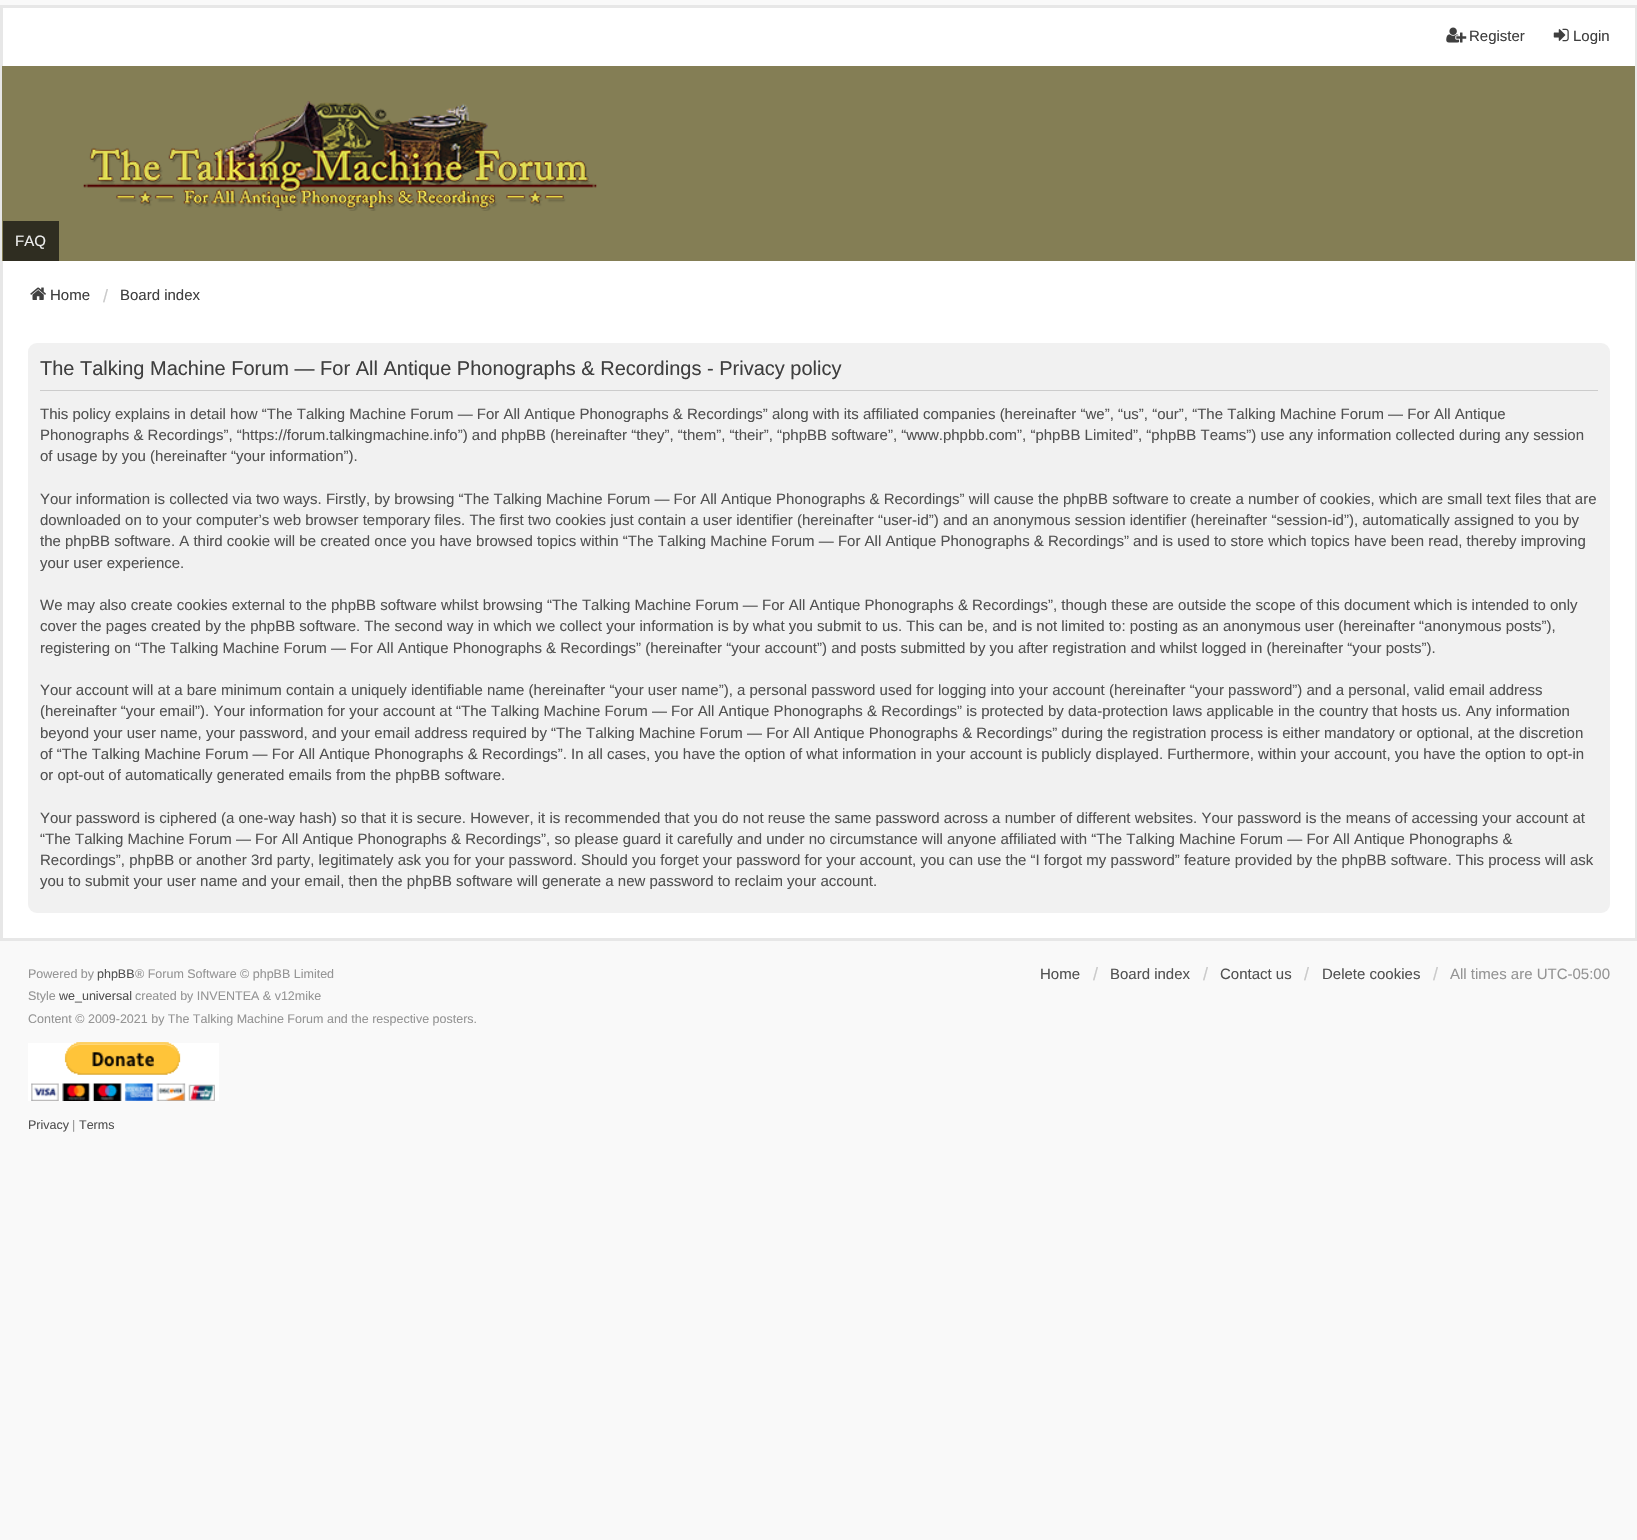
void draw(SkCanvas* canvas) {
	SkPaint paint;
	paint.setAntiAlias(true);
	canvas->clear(0xfff9f9f9);
	paint.setColor(0xffffffff);
	canvas->drawRect(SkRect::MakeXYWH(3, 8, 1632, 58), paint);
	paint.setColor(0xffe7e7e7);
	canvas->drawRect(SkRect::MakeXYWH(0, 5, 1637, 3), paint);
	canvas->drawRect(SkRect::MakeXYWH(1635, 5, 2, 935), paint);
	canvas->drawRect(SkRect::MakeXYWH(0, 5, 3, 61), paint);
	canvas->drawImageRect(SkImages::DeferredFromEncodedData(SkData::MakeFromFileName("img1.png")), SkRect::MakeXYWH(1446, 27, 21, 16), SkSamplingOptions());
	SkFont f1(fontMgr->matchFamilyStyle("Liberation Sans", SkFontStyle::Normal()), 15);
	f1.setSubpixel(true);
	paint.setColor(0xff3f3f3f);
	canvas->drawString("Register", 1469, 41, f1, paint);
	canvas->drawImageRect(SkImages::DeferredFromEncodedData(SkData::MakeFromFileName("img2.png")), SkRect::MakeXYWH(1553, 28, 16, 14), SkSamplingOptions());
	canvas->drawString("Login", 1573, 41, f1, paint);
	paint.setColor(0xffe7e7e7);
	canvas->drawRect(SkRect::MakeXYWH(0, 66, 2, 195), paint);
	paint.setColor(0xff847e55);
	canvas->drawRect(SkRect::MakeXYWH(2, 66, 1633, 195), paint);
	canvas->drawImageRect(SkImages::DeferredFromEncodedData(SkData::MakeFromFileName("img3.png")), SkRect::MakeXYWH(83, 101, 514, 110), SkSamplingOptions());
	paint.setColor(0xff2f2d21);
	canvas->drawRect(SkRect::MakeXYWH(3, 221, 56, 40), paint);
	paint.setColor(0xffeeeeee);
	canvas->drawString("FAQ", 15, 246, f1, paint);
	paint.setColor(0xffffffff);
	canvas->drawRect(SkRect::MakeXYWH(3, 261, 1632, 677), paint);
	paint.setColor(0xffe7e7e7);
	canvas->drawRect(SkRect::MakeXYWH(0, 938, 1637, 3), paint);
	canvas->drawRect(SkRect::MakeXYWH(0, 261, 3, 679), paint);
	canvas->drawImageRect(SkImages::DeferredFromEncodedData(SkData::MakeFromFileName("img4.png")), SkRect::MakeXYWH(30, 287, 16, 13), SkSamplingOptions());
	paint.setColor(0xff3f3f3f);
	canvas->drawString("Home", 50, 300, f1, paint);
	SkFont f2(fontMgr->matchFamilyStyle("Liberation Sans", SkFontStyle::Normal()), 18);
	f2.setSubpixel(true);
	paint.setColor(0xffcacaca);
	canvas->drawString("/", 103, 302, f2, paint);
	paint.setColor(0xff3f3f3f);
	canvas->drawString("Board index", 120, 300, f1, paint);
	paint.setColor(0xfff1f1f1);
	canvas->drawRoundRect(SkRect::MakeXYWH(28, 343, 1582, 570), 9, 9, paint);
	paint.setColor(0xffcccccc);
	canvas->drawRect(SkRect::MakeXYWH(40, 390, 1558, 1), paint);
	SkFont f3(fontMgr->matchFamilyStyle("Liberation Sans", SkFontStyle::Normal()), 20);
	f3.setSubpixel(true);
	paint.setColor(0xff3f3f3f);
	canvas->drawString("The Talking Machine Forum — For All Antique Phonographs & Recordings - Privacy policy", 40, 375, f3, paint);
	paint.setColor(0xff525252);
	canvas->drawString("This policy explains in detail how “The Talking Machine Forum — For All Antique Phonographs & Recordings” along with its affiliated companies (hereinafter “we”, “us”, “our”, “The Talking Machine Forum — For All Antique", 40, 419, f1, paint);
	canvas->drawString("Phonographs & Recordings”, “https://forum.talkingmachine.info”) and phpBB (hereinafter “they”, “them”, “their”, “phpBB software”, “www.phpbb.com”, “phpBB Limited”, “phpBB Teams”) use any information collected during any session", 40, 440, f1, paint);
	canvas->drawString("of usage by you (hereinafter “your information”).", 40, 461, f1, paint);
	canvas->drawString("Your information is collected via two ways. Firstly, by browsing “The Talking Machine Forum — For All Antique Phonographs & Recordings” will cause the phpBB software to create a number of cookies, which are small text files that are", 40, 504, f1, paint);
	canvas->drawString("downloaded on to your computer’s web browser temporary files. The first two cookies just contain a user identifier (hereinafter “user-id”) and an anonymous session identifier (hereinafter “session-id”), automatically assigned to you by", 40, 525, f1, paint);
	canvas->drawString("the phpBB software. A third cookie will be created once you have browsed topics within “The Talking Machine Forum — For All Antique Phonographs & Recordings” and is used to store which topics have been read, thereby improving", 40, 546, f1, paint);
	canvas->drawString("your user experience.", 40, 568, f1, paint);
	canvas->drawString("We may also create cookies external to the phpBB software whilst browsing “The Talking Machine Forum — For All Antique Phonographs & Recordings”, though these are outside the scope of this document which is intended to only", 40, 610, f1, paint);
	canvas->drawString("cover the pages created by the phpBB software. The second way in which we collect your information is by what you submit to us. This can be, and is not limited to: posting as an anonymous user (hereinafter “anonymous posts”),", 40, 631, f1, paint);
	canvas->drawString("registering on “The Talking Machine Forum — For All Antique Phonographs & Recordings” (hereinafter “your account”) and posts submitted by you after registration and whilst logged in (hereinafter “your posts”).", 40, 653, f1, paint);
	canvas->drawString("Your account will at a bare minimum contain a uniquely identifiable name (hereinafter “your user name”), a personal password used for logging into your account (hereinafter “your password”) and a personal, valid email address", 40, 695, f1, paint);
	canvas->drawString("(hereinafter “your email”). Your information for your account at “The Talking Machine Forum — For All Antique Phonographs & Recordings” is protected by data-protection laws applicable in the country that hosts us. Any information", 40, 716, f1, paint);
	canvas->drawString("beyond your user name, your password, and your email address required by “The Talking Machine Forum — For All Antique Phonographs & Recordings” during the registration process is either mandatory or optional, at the discretion", 40, 738, f1, paint);
	canvas->drawString("of “The Talking Machine Forum — For All Antique Phonographs & Recordings”. In all cases, you have the option of what information in your account is publicly displayed. Furthermore, within your account, you have the option to opt-in", 40, 759, f1, paint);
	canvas->drawString("or opt-out of automatically generated emails from the phpBB software.", 40, 780, f1, paint);
	canvas->drawString("Your password is ciphered (a one-way hash) so that it is secure. However, it is recommended that you do not reuse the same password across a number of different websites. Your password is the means of accessing your account at", 40, 823, f1, paint);
	canvas->drawString("“The Talking Machine Forum — For All Antique Phonographs & Recordings”, so please guard it carefully and under no circumstance will anyone affiliated with “The Talking Machine Forum — For All Antique Phonographs &", 40, 844, f1, paint);
	canvas->drawString("Recordings”, phpBB or another 3rd party, legitimately ask you for your password. Should you forget your password for your account, you can use the “I forgot my password” feature provided by the phpBB software. This process will ask", 40, 865, f1, paint);
	canvas->drawString("you to submit your user name and your email, then the phpBB software will generate a new password to reclaim your account.", 40, 886, f1, paint);
	SkFont f4(fontMgr->matchFamilyStyle("Liberation Sans", SkFontStyle::Normal()), 12.5);
	f4.setSubpixel(true);
	paint.setColor(0xff959595);
	canvas->drawString("Powered by", 28, 978, f4, paint);
	paint.setColor(0xff525252);
	canvas->drawString("phpBB", 97, 978, f4, paint);
	paint.setColor(0xff959595);
	canvas->drawString("® Forum Software © phpBB Limited", 135, 978, f4, paint);
	canvas->drawString("Style", 28, 1000, f4, paint);
	paint.setColor(0xff525252);
	canvas->drawString("we_universal", 59, 1000, f4, paint);
	paint.setColor(0xff959595);
	canvas->drawString("created by INVENTEA & v12mike", 135, 1000, f4, paint);
	canvas->drawString("Content © 2009-2021 by The Talking Machine Forum and the respective posters.", 28, 1023, f4, paint);
	paint.setColor(0xffffffff);
	canvas->drawRect(SkRect::MakeXYWH(28, 1043, 191, 58), paint);
	canvas->drawImageRect(SkImages::DeferredFromEncodedData(SkData::MakeFromFileName("img5.png")), SkRect::MakeXYWH(31, 1042, 184, 59), SkSamplingOptions());
	paint.setColor(0xff525252);
	canvas->drawString("Privacy", 28, 1129, f4, paint);
	paint.setColor(0xff959595);
	canvas->drawString("|", 72, 1129, f4, paint);
	paint.setColor(0xff525252);
	canvas->drawString("Terms", 79, 1129, f4, paint);
	canvas->drawString("Home", 1040, 979, f1, paint);
	paint.setColor(0xffcacaca);
	canvas->drawString("/", 1093, 980, f2, paint);
	paint.setColor(0xff525252);
	canvas->drawString("Board index", 1110, 979, f1, paint);
	paint.setColor(0xffcacaca);
	canvas->drawString("/", 1203, 980, f2, paint);
	paint.setColor(0xff525252);
	canvas->drawString("Contact us", 1220, 979, f1, paint);
	paint.setColor(0xffcacaca);
	canvas->drawString("/", 1304, 980, f2, paint);
	paint.setColor(0xff525252);
	canvas->drawString("Delete cookies", 1322, 979, f1, paint);
	paint.setColor(0xffcacaca);
	canvas->drawString("/", 1433, 980, f2, paint);
	paint.setColor(0xff959595);
	canvas->drawString("All times are UTC-05:00", 1450, 979, f1, paint);
}
